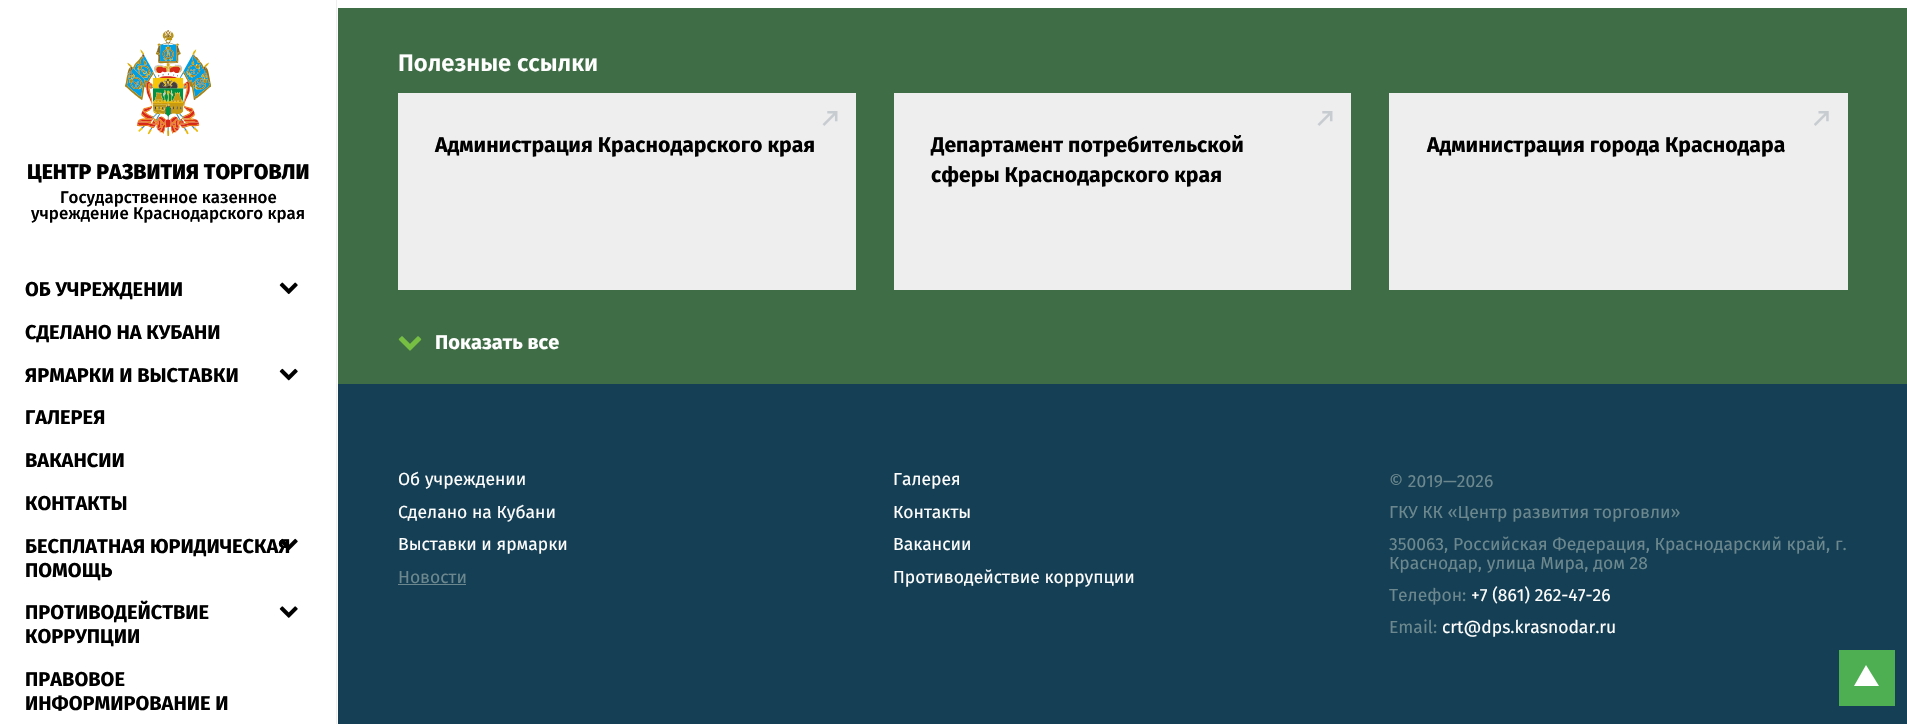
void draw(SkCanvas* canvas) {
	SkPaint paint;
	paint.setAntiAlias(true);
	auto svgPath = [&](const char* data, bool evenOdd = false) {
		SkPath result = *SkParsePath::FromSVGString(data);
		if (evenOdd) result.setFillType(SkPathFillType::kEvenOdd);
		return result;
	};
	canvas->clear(0xffffffff);
	paint.setColor(0xffeeeeee);
	canvas->drawRect(SkRect::MakeXYWH(336, 0, 1, 724), paint);
	canvas->drawImageRect(SkImages::DeferredFromEncodedData(SkData::MakeFromFileName("img1.png")), SkRect::MakeXYWH(125, 30, 86, 106), SkSamplingOptions());
	SkFont f1(fontMgr->matchFamilyStyle("Fira Sans", SkFontStyle(800, SkFontStyle::kNormal_Width, SkFontStyle::kUpright_Slant)), 21.25);
	f1.setSubpixel(true);
	paint.setColor(0xff000000);
	canvas->drawString("ЦЕНТР РАЗВИТИЯ ТОРГОВЛИ", 27, 179, f1, paint);
	SkFont f2(fontMgr->matchFamilyStyle("Fira Sans", SkFontStyle(500, SkFontStyle::kNormal_Width, SkFontStyle::kUpright_Slant)), 16.9);
	f2.setSubpixel(true);
	canvas->drawString("Государственное казенное", 60, 203, f2, paint);
	canvas->drawString("учреждение Краснодарского края", 31, 219, f2, paint);
	SkFont f3(fontMgr->matchFamilyStyle("Fira Sans", SkFontStyle::Bold()), 20);
	f3.setSubpixel(true);
	canvas->drawString("ОБ УЧРЕЖДЕНИИ", 25, 296, f3, paint);
	canvas->drawImageRect(SkImages::DeferredFromEncodedData(SkData::MakeFromFileName("img2.png")), SkRect::MakeXYWH(279, 282, 19, 13), SkSamplingOptions());
	canvas->drawString("СДЕЛАНО НА КУБАНИ", 25, 339, f3, paint);
	canvas->drawString("ЯРМАРКИ И ВЫСТАВКИ", 25, 382, f3, paint);
	canvas->drawImageRect(SkImages::DeferredFromEncodedData(SkData::MakeFromFileName("img3.png")), SkRect::MakeXYWH(279, 368, 19, 13), SkSamplingOptions());
	canvas->drawString("ГАЛЕРЕЯ", 25, 424, f3, paint);
	canvas->drawString("ВАКАНСИИ", 25, 467, f3, paint);
	canvas->drawString("КОНТАКТЫ", 25, 510, f3, paint);
	canvas->drawString("БЕСПЛАТНАЯ ЮРИДИЧЕСКАЯ", 25, 553, f3, paint);
	canvas->drawString("ПОМОЩЬ", 25, 577, f3, paint);
	canvas->drawImageRect(SkImages::DeferredFromEncodedData(SkData::MakeFromFileName("img4.png")), SkRect::MakeXYWH(279, 538, 19, 13), SkSamplingOptions());
	canvas->drawString("ПРОТИВОДЕЙСТВИЕ", 25, 619, f3, paint);
	canvas->drawString("КОРРУПЦИИ", 25, 643, f3, paint);
	canvas->drawImageRect(SkImages::DeferredFromEncodedData(SkData::MakeFromFileName("img5.png")), SkRect::MakeXYWH(279, 606, 19, 12), SkSamplingOptions());
	canvas->drawString("ПРАВОВОЕ", 25, 686, f3, paint);
	canvas->drawString("ИНФОРМИРОВАНИЕ И", 25, 710, f3, paint);
	paint.setColor(0xff3f6d46);
	canvas->drawRect(SkRect::MakeXYWH(338, 8, 1569, 376), paint);
	SkFont f4(fontMgr->matchFamilyStyle("Fira Sans", SkFontStyle(600, SkFontStyle::kNormal_Width, SkFontStyle::kUpright_Slant)), 23.75);
	f4.setSubpixel(true);
	paint.setColor(0xffffffff);
	canvas->drawString("Полезные ссылки", 398, 71, f4, paint);
	paint.setColor(0xffeeeeee);
	canvas->drawRect(SkRect::MakeXYWH(398, 93, 458, 197), paint);
	canvas->drawImageRect(SkImages::DeferredFromEncodedData(SkData::MakeFromFileName("img6.png")), SkRect::MakeXYWH(822, 111, 16, 15), SkSamplingOptions());
	SkFont f5(fontMgr->matchFamilyStyle("Fira Sans", SkFontStyle::Bold()), 21.25);
	f5.setSubpixel(true);
	paint.setColor(0xff000000);
	canvas->drawString("Администрация Краснодарского края", 435, 152, f5, paint);
	paint.setColor(0xffeeeeee);
	canvas->drawRect(SkRect::MakeXYWH(894, 93, 457, 197), paint);
	canvas->drawImageRect(SkImages::DeferredFromEncodedData(SkData::MakeFromFileName("img6.png")), SkRect::MakeXYWH(1317, 111, 16, 15), SkSamplingOptions());
	paint.setColor(0xff000000);
	canvas->drawString("Департамент потребительской", 931, 152, f5, paint);
	canvas->drawString("сферы Краснодарского края", 931, 182, f5, paint);
	paint.setColor(0xffeeeeee);
	canvas->drawRect(SkRect::MakeXYWH(1389, 93, 459, 197), paint);
	canvas->drawImageRect(SkImages::DeferredFromEncodedData(SkData::MakeFromFileName("img7.png")), SkRect::MakeXYWH(1814, 111, 15, 15), SkSamplingOptions());
	paint.setColor(0xff000000);
	canvas->drawString("Администрация города Краснодара", 1427, 152, f5, paint);
	canvas->drawImageRect(SkImages::DeferredFromEncodedData(SkData::MakeFromFileName("img8.png")), SkRect::MakeXYWH(398, 336, 24, 15), SkSamplingOptions());
	paint.setColor(0xffffffff);
	canvas->drawString("Показать все", 435, 349, f3, paint);
	paint.setColor(0xff153f54);
	canvas->drawRect(SkRect::MakeXYWH(338, 384, 1569, 340), paint);
	SkFont f6(fontMgr->matchFamilyStyle("Fira Sans", SkFontStyle::Normal()), 17.5);
	f6.setSubpixel(true);
	paint.setColor(0xffffffff);
	canvas->drawString("Об учреждении", 398, 485, f6, paint);
	canvas->drawString("Сделано на Кубани", 398, 518, f6, paint);
	canvas->drawString("Выставки и ярмарки", 398, 550, f6, paint);
	paint.setColor(0xff6c888e);
	canvas->drawString("Новости", 398, 583, f6, paint);
	canvas->drawRect(SkRect::MakeXYWH(398, 584, 68, 1), paint);
	paint.setColor(0xffffffff);
	canvas->drawString("Галерея", 893, 485, f6, paint);
	canvas->drawString("Контакты", 893, 518, f6, paint);
	canvas->drawString("Вакансии", 893, 550, f6, paint);
	canvas->drawString("Противодействие коррупции", 893, 583, f6, paint);
	paint.setColor(0xff6c888e);
	canvas->drawString("© 2019—2026", 1389, 487, f6, paint);
	canvas->drawString("ГКУ КК «Центр развития торговли»", 1389, 518, f6, paint);
	canvas->drawString("350063, Российская Федерация, Краснодарский край, г.", 1389, 550, f6, paint);
	canvas->drawString("Краснодар, улица Мира, дом 28", 1389, 569, f6, paint);
	canvas->drawString("Телефон:", 1389, 601, f6, paint);
	paint.setColor(0xffffffff);
	canvas->drawString("+7 (861) 262-47-26", 1471, 601, f6, paint);
	paint.setColor(0xff6c888e);
	canvas->drawString("Email:", 1389, 633, f6, paint);
	paint.setColor(0xffffffff);
	canvas->drawString("crt@dps.krasnodar.ru", 1442, 633, f6, paint);
	paint.setColor(0xff4eaf52);
	canvas->drawRect(SkRect::MakeXYWH(1839, 650, 56, 56), paint);
	paint.setColor(0xffffffff);
	canvas->drawPath(svgPath("M1879 686H1854L1866 665Z"), paint);
}
